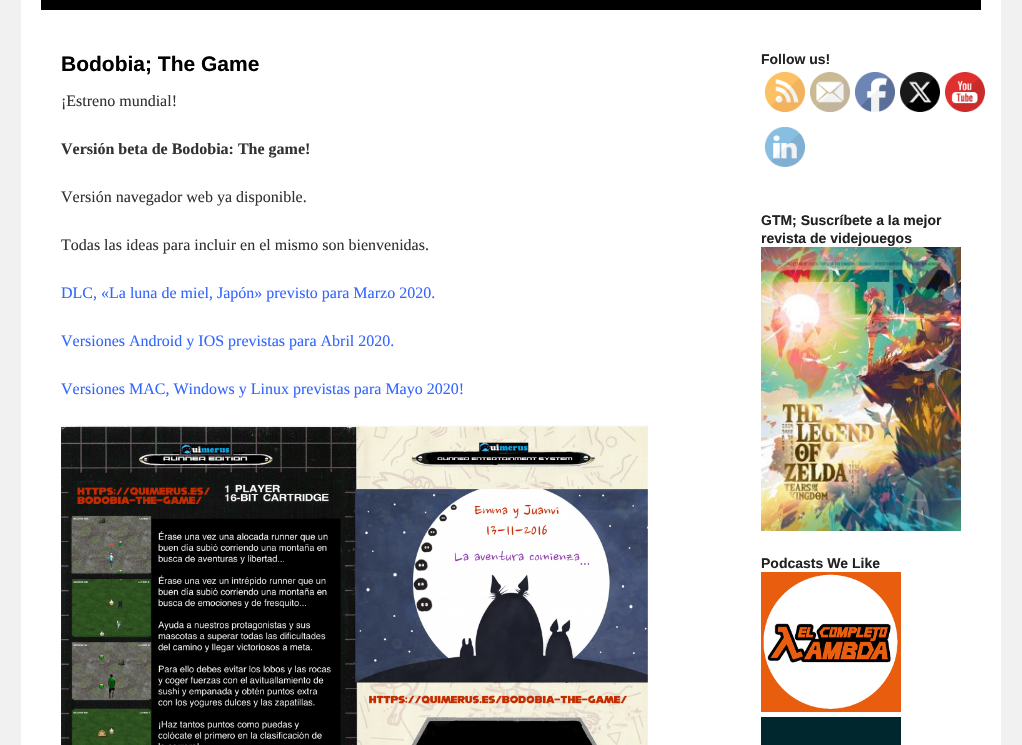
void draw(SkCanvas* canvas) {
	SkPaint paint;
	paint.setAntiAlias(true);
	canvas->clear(0xfff1f1f1);
	paint.setColor(0xffffffff);
	canvas->drawRect(SkRect::MakeXYWH(21, 0, 980, 745), paint);
	paint.setColor(0xff000000);
	canvas->drawRect(SkRect::MakeXYWH(41, 0, 940, 10), paint);
	SkFont f1(fontMgr->matchFamilyStyle("Liberation Sans", SkFontStyle::Bold()), 21);
	f1.setSubpixel(true);
	canvas->drawString("Bodobia; The Game", 61, 71, f1, paint);
	SkFont f2(fontMgr->matchFamilyStyle("Liberation Serif", SkFontStyle::Normal()), 16);
	f2.setSubpixel(true);
	paint.setColor(0xff333333);
	canvas->drawString("¡Estreno mundial!", 61, 106, f2, paint);
	SkFont f3(fontMgr->matchFamilyStyle("Liberation Serif", SkFontStyle::Bold()), 16);
	f3.setSubpixel(true);
	canvas->drawString("Versión beta de Bodobia: The game!", 61, 154, f3, paint);
	canvas->drawString("Versión navegador web ya disponible.", 61, 202, f2, paint);
	canvas->drawString("Todas las ideas para incluir en el mismo son bienvenidas.", 61, 250, f2, paint);
	paint.setColor(0xff3366ff);
	canvas->drawString("DLC, «La luna de miel, Japón» previsto para Marzo 2020.", 61, 298, f2, paint);
	canvas->drawString("Versiones Android y IOS previstas para Abril 2020.", 61, 346, f2, paint);
	canvas->drawString("Versiones MAC, Windows y Linux previstas para Mayo 2020!", 61, 394, f2, paint);
	canvas->drawImageRect(SkImages::DeferredFromEncodedData(SkData::MakeFromFileName("img1.png")), SkRect::MakeXYWH(61, 425, 587, 320), SkSamplingOptions());
	SkFont f4(fontMgr->matchFamilyStyle("Liberation Sans", SkFontStyle::Bold()), 14);
	f4.setSubpixel(true);
	paint.setColor(0xff222222);
	canvas->drawString("Follow us!", 761, 64, f4, paint);
	canvas->drawImageRect(SkImages::DeferredFromEncodedData(SkData::MakeFromFileName("img2.png")), SkRect::MakeXYWH(765, 72, 40, 40), SkSamplingOptions());
	canvas->drawImageRect(SkImages::DeferredFromEncodedData(SkData::MakeFromFileName("img3.png")), SkRect::MakeXYWH(810, 72, 40, 40), SkSamplingOptions());
	canvas->drawImageRect(SkImages::DeferredFromEncodedData(SkData::MakeFromFileName("img4.png")), SkRect::MakeXYWH(855, 72, 40, 40), SkSamplingOptions());
	canvas->drawImageRect(SkImages::DeferredFromEncodedData(SkData::MakeFromFileName("img5.png")), SkRect::MakeXYWH(900, 72, 40, 40), SkSamplingOptions());
	canvas->drawImageRect(SkImages::DeferredFromEncodedData(SkData::MakeFromFileName("img6.png")), SkRect::MakeXYWH(945, 72, 40, 40), SkSamplingOptions());
	canvas->drawImageRect(SkImages::DeferredFromEncodedData(SkData::MakeFromFileName("img7.png")), SkRect::MakeXYWH(765, 127, 40, 40), SkSamplingOptions());
	canvas->drawString("GTM; Suscríbete a la mejor", 761, 225, f4, paint);
	canvas->drawString("revista de videjouegos", 761, 243, f4, paint);
	canvas->drawImageRect(SkImages::DeferredFromEncodedData(SkData::MakeFromFileName("img8.png")), SkRect::MakeXYWH(761, 247, 200, 284), SkSamplingOptions());
	canvas->drawString("Podcasts We Like", 761, 568, f4, paint);
	canvas->drawImageRect(SkImages::DeferredFromEncodedData(SkData::MakeFromFileName("img9.png")), SkRect::MakeXYWH(761, 572, 140, 140), SkSamplingOptions());
	paint.setColor(0xff00272e);
	canvas->drawRect(SkRect::MakeXYWH(761, 717, 140, 28), paint);
}
